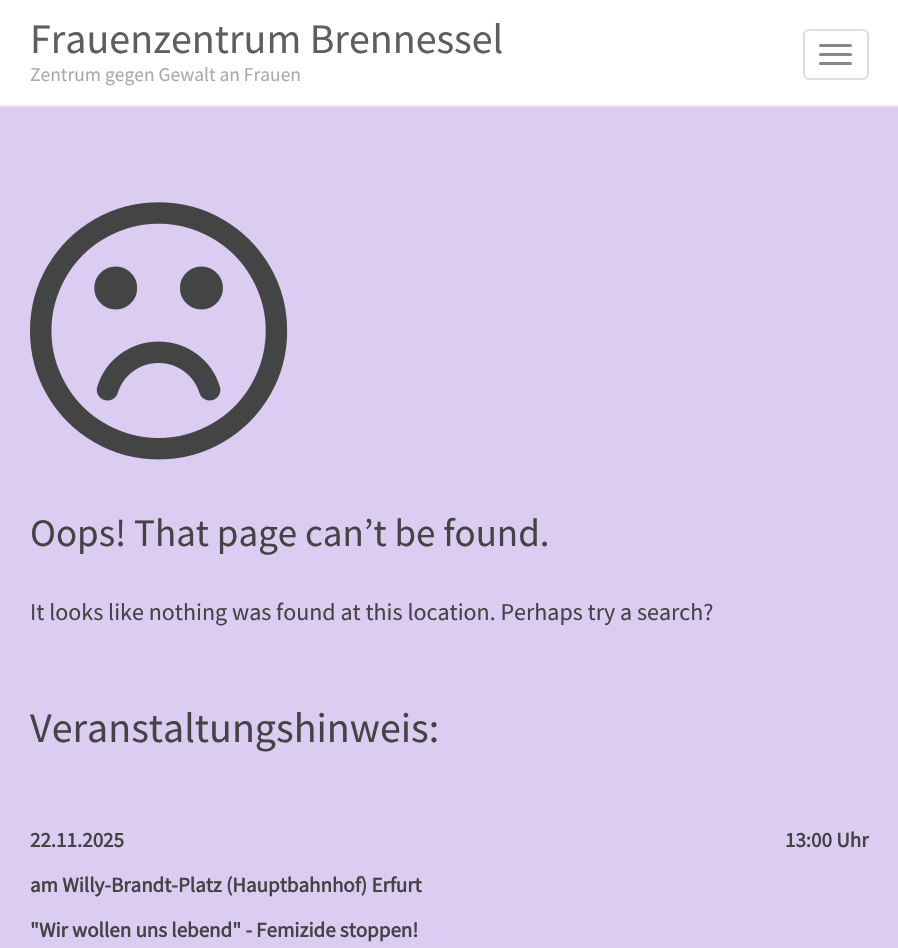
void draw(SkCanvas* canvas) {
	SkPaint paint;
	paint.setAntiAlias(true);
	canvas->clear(0xffdbcdf2);
	paint.setColor(0xffffffff);
	canvas->drawRect(SkRect::MakeXYWH(0, 0, 898, 105), paint);
	paint.setColor(0xffe7e7e7);
	canvas->drawRect(SkRect::MakeXYWH(0, 105, 898, 2), paint);
	SkFont f1(fontMgr->matchFamilyStyle("Source Sans Pro", SkFontStyle::Normal()), 42);
	f1.setSubpixel(true);
	paint.setColor(0xff5e5e5e);
	canvas->drawString("Frauenzentrum Brennessel", 30, 53, f1, paint);
	SkFont f2(fontMgr->matchFamilyStyle("Source Sans Pro", SkFontStyle::Normal()), 19.5);
	f2.setSubpixel(true);
	paint.setColor(0xffaaaaaa);
	canvas->drawString("Zentrum gegen Gewalt an Frauen", 30, 81, f2, paint);
	paint.setStroke(true);
	paint.setStrokeWidth(2);
	paint.setColor(0xffdddddd);
	canvas->drawRoundRect(SkRect::MakeXYWH(804, 30, 64, 49), 5, 5, paint);
	paint.setStroke(false);
	paint.setColor(0xff888888);
	canvas->drawRoundRect(SkRect::MakeXYWH(819, 44, 33, 3), 1.5, 1.5, paint);
	canvas->drawRoundRect(SkRect::MakeXYWH(819, 53, 33, 3), 1.5, 1.5, paint);
	canvas->drawRoundRect(SkRect::MakeXYWH(819, 62, 33, 3), 1.5, 1.5, paint);
	canvas->drawImageRect(SkImages::DeferredFromEncodedData(SkData::MakeFromFileName("img1.png")), SkRect::MakeXYWH(30, 202, 258, 258), SkSamplingOptions());
	SkFont f3(fontMgr->matchFamilyStyle("Source Sans Pro", SkFontStyle::Normal()), 39);
	f3.setSubpixel(true);
	paint.setColor(0xff444444);
	canvas->drawString("Oops! That page can’t be found.", 30, 546, f3, paint);
	SkFont f4(fontMgr->matchFamilyStyle("Source Sans Pro", SkFontStyle::Normal()), 24);
	f4.setSubpixel(true);
	canvas->drawString("It looks like nothing was found at this location. Perhaps try a search?", 30, 620, f4, paint);
	canvas->drawString("Veranstaltungshinweis:", 30, 742, f1, paint);
	SkFont f5(fontMgr->matchFamilyStyle("Source Sans Pro", SkFontStyle::Bold()), 21);
	f5.setSubpixel(true);
	canvas->drawString("22.11.2025", 30, 847, f5, paint);
	canvas->drawString("13:00 Uhr", 785, 847, f5, paint);
	canvas->drawString("am Willy-Brandt-Platz (Hauptbahnhof) Erfurt", 30, 892, f5, paint);
	canvas->drawString("\"Wir wollen uns lebend\" - Femizide stoppen!", 30, 937, f5, paint);
}
